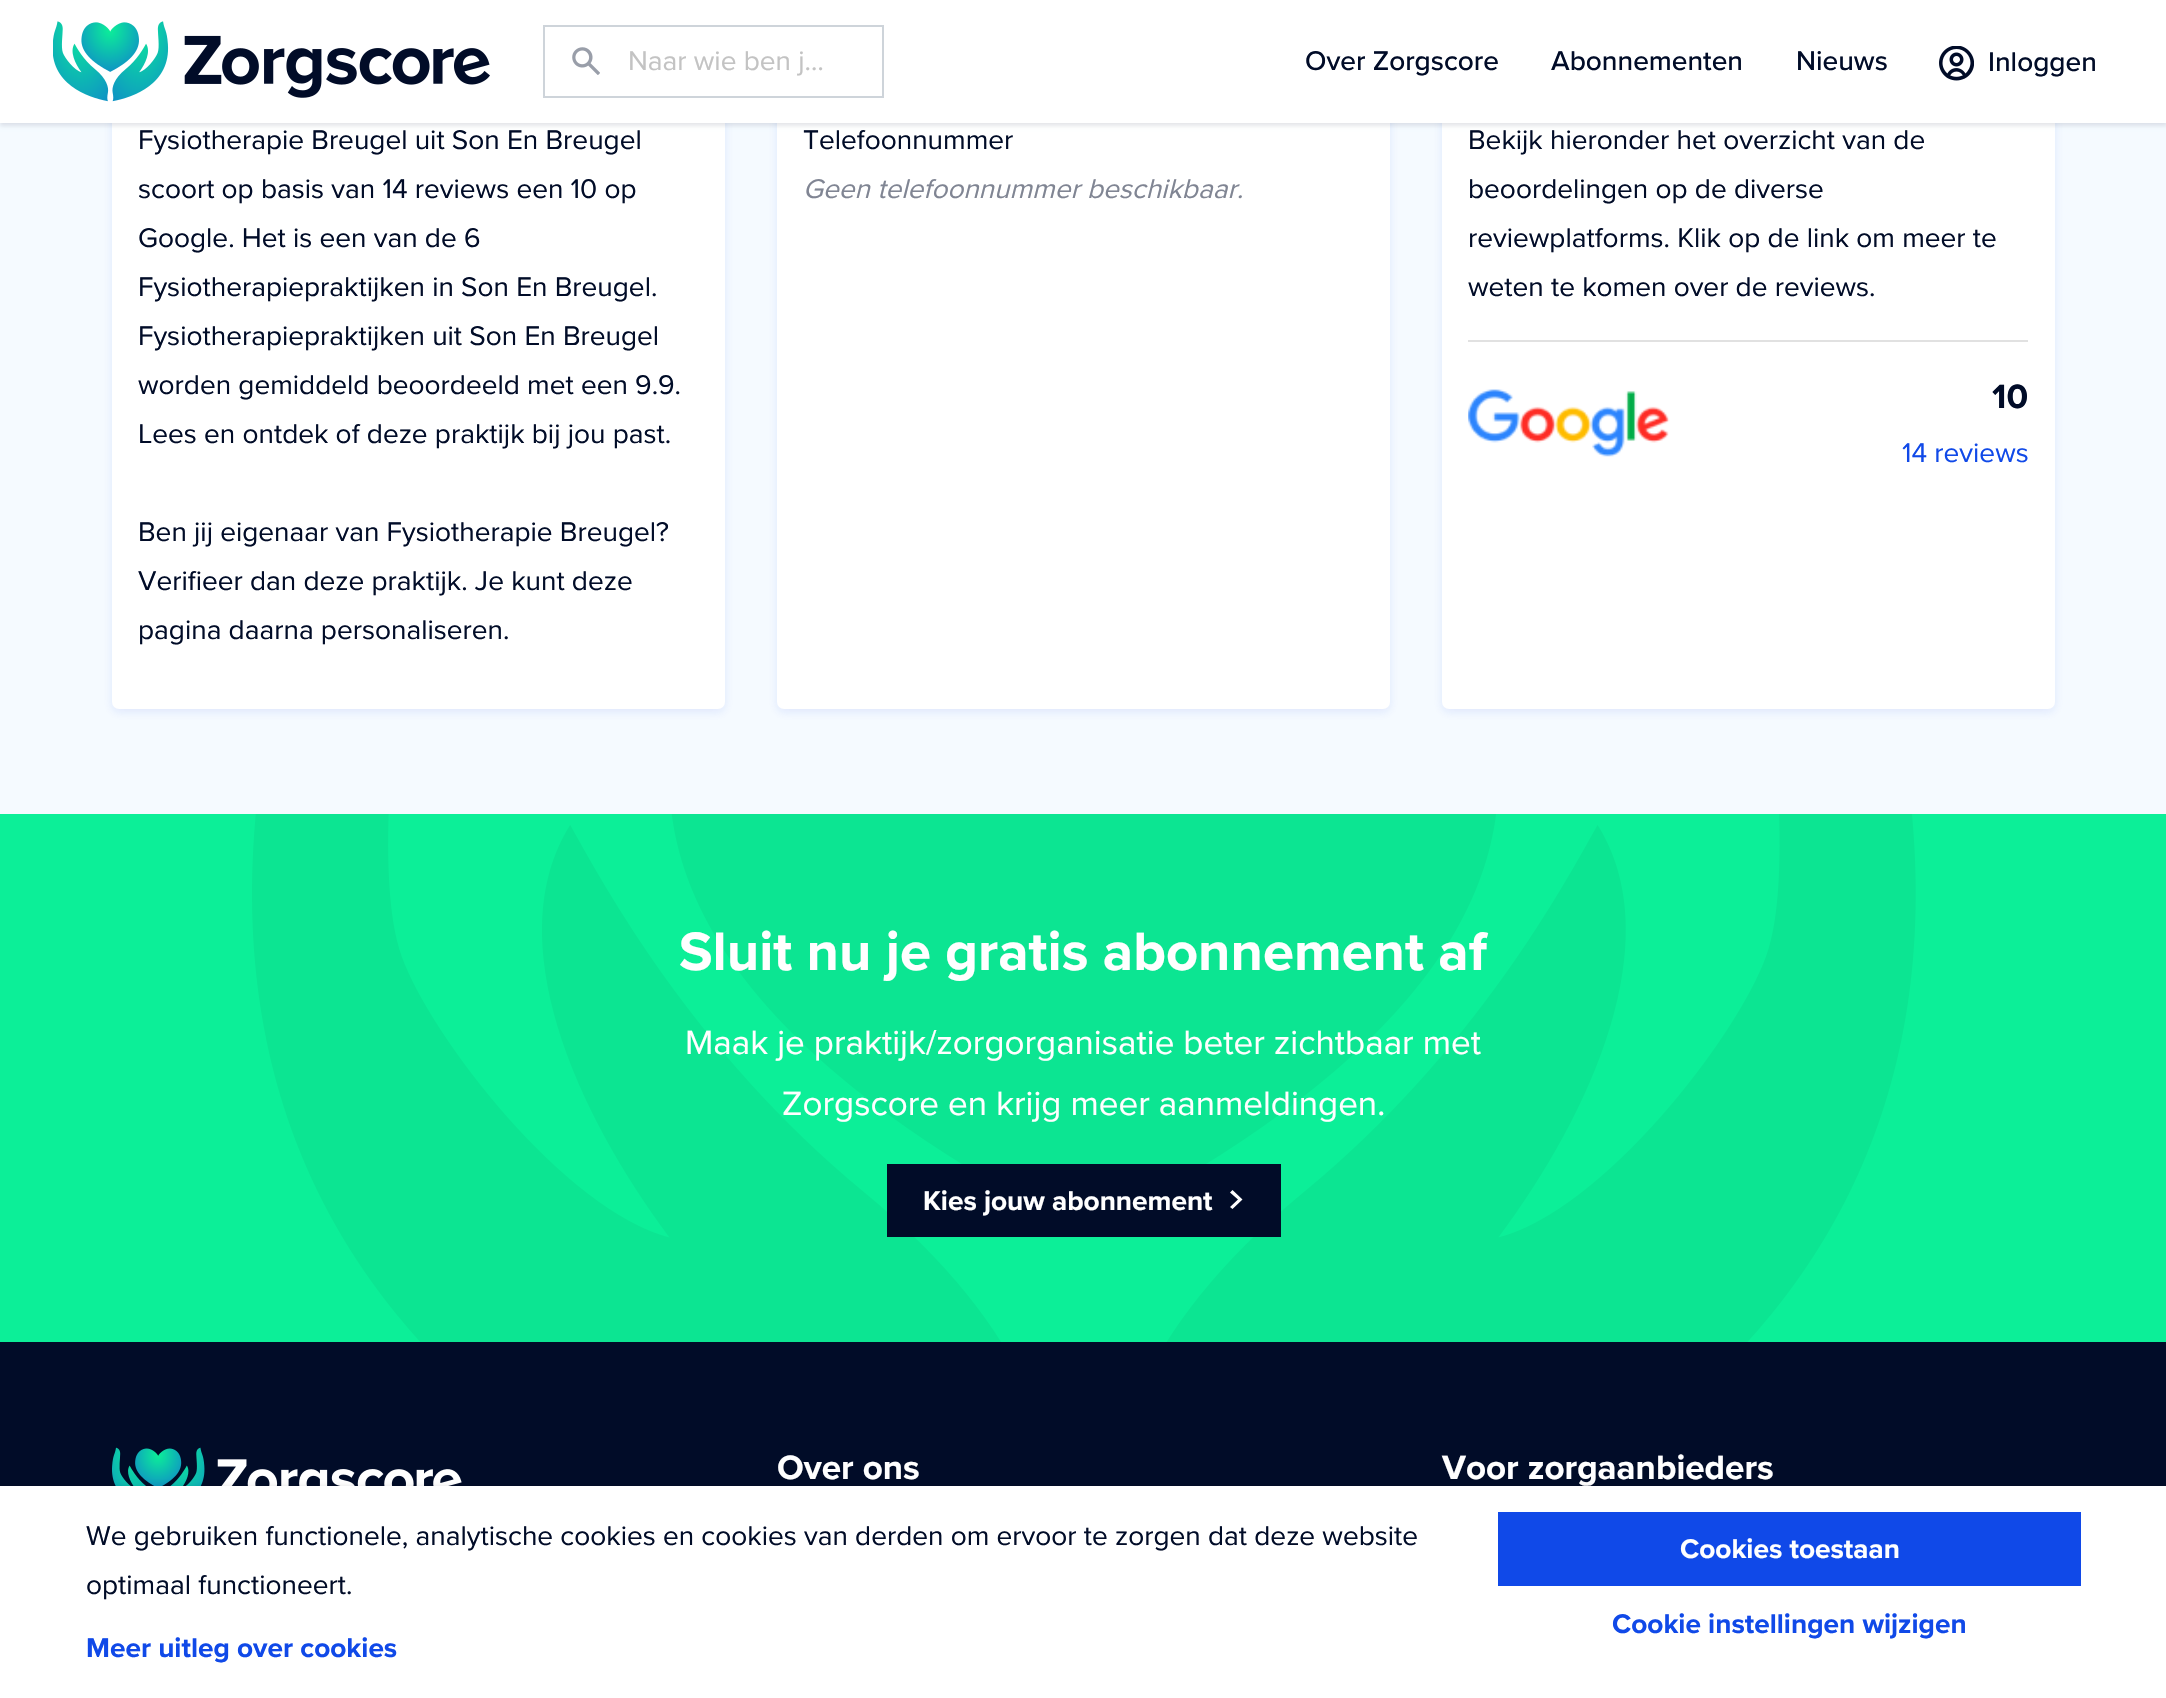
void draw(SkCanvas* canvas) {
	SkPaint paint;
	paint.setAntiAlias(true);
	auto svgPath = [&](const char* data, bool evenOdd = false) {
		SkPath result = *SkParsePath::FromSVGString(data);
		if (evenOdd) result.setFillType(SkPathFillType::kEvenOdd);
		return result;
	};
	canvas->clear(0xfff5faff);
	paint.setColor(0x1a1049e8);
	paint.setMaskFilter(SkMaskFilter::MakeBlur(kNormal_SkBlurStyle, 5));
	canvas->drawRoundRect(SkRect::MakeXYWH(112, 33, 613, 679), 7, 7, paint);
	paint.setMaskFilter(nullptr);
	paint.setColor(0xffffffff);
	canvas->drawRoundRect(SkRect::MakeXYWH(112, 30, 613, 679), 7, 7, paint);
	paint.setColor(0x1a1049e8);
	paint.setMaskFilter(SkMaskFilter::MakeBlur(kNormal_SkBlurStyle, 5));
	canvas->drawRoundRect(SkRect::MakeXYWH(777, 33, 613, 679), 7, 7, paint);
	paint.setMaskFilter(nullptr);
	paint.setColor(0xffffffff);
	canvas->drawRoundRect(SkRect::MakeXYWH(777, 30, 613, 679), 7, 7, paint);
	paint.setColor(0x1a1049e8);
	paint.setMaskFilter(SkMaskFilter::MakeBlur(kNormal_SkBlurStyle, 5));
	canvas->drawRoundRect(SkRect::MakeXYWH(1442, 33, 613, 679), 7, 7, paint);
	paint.setMaskFilter(nullptr);
	paint.setColor(0xffffffff);
	canvas->drawRoundRect(SkRect::MakeXYWH(1442, 30, 613, 679), 7, 7, paint);
	paint.setColor(0x1a010c28);
	paint.setMaskFilter(SkMaskFilter::MakeBlur(kNormal_SkBlurStyle, 2));
	canvas->drawRect(SkRect::MakeXYWH(0, 4, 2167, 122), paint);
	paint.setMaskFilter(nullptr);
	paint.setColor(0xffffffff);
	canvas->drawRect(SkRect::MakeXYWH(0, 0, 2166, 123), paint);
	canvas->drawImageRect(SkImages::DeferredFromEncodedData(SkData::MakeFromFileName("img1.png")), SkRect::MakeXYWH(53, 21, 437, 81), SkSamplingOptions());
	canvas->drawImageRect(SkImages::DeferredFromEncodedData(SkData::MakeFromFileName("img2.png")), SkRect::MakeXYWH(572, 47, 28, 28), SkSamplingOptions());
	paint.setStroke(true);
	paint.setStrokeWidth(2);
	paint.setColor(0xffced4da);
	canvas->drawRect(SkRect::MakeXYWH(544, 26, 339, 71), paint);
	SkFont f1(fontMgr->matchFamilyStyle("Proxima Nova", SkFontStyle::Normal()), 28);
	f1.setSubpixel(true);
	paint.setStroke(false);
	paint.setColor(0xffc3c3c3);
	canvas->drawString("Naar wie ben j…", 628, 70, f1, paint);
	SkFont f2(fontMgr->matchFamilyStyle("Proxima Nova", SkFontStyle(500, SkFontStyle::kNormal_Width, SkFontStyle::kUpright_Slant)), 28);
	f2.setSubpixel(true);
	paint.setColor(0xff010c28);
	canvas->drawString("Over Zorgscore", 1305, 70, f2, paint);
	canvas->drawString("Abonnementen", 1551, 70, f2, paint);
	canvas->drawString("Nieuws", 1796, 70, f2, paint);
	canvas->drawImageRect(SkImages::DeferredFromEncodedData(SkData::MakeFromFileName("img3.png")), SkRect::MakeXYWH(1939, 46, 35, 35), SkSamplingOptions());
	canvas->drawString("Inloggen", 1988, 71, f2, paint);
	canvas->drawString("Fysiotherapie Breugel uit Son En Breugel", 138, 149, f1, paint);
	canvas->drawString("scoort op basis van 14 reviews een 10 op", 138, 198, f1, paint);
	canvas->drawString("Google. Het is een van de 6", 138, 247, f1, paint);
	canvas->drawString("Fysiotherapiepraktijken in Son En Breugel.", 138, 296, f1, paint);
	canvas->drawString("Fysiotherapiepraktijken uit Son En Breugel", 138, 345, f1, paint);
	canvas->drawString("worden gemiddeld beoordeeld met een 9.9.", 138, 394, f1, paint);
	canvas->drawString("Lees en ontdek of deze praktijk bij jou past.", 138, 443, f1, paint);
	canvas->drawString("Ben jij eigenaar van Fysiotherapie Breugel?", 138, 541, f1, paint);
	canvas->drawString("Verifieer dan deze praktijk. Je kunt deze", 138, 590, f1, paint);
	canvas->drawString("pagina daarna personaliseren.", 138, 639, f1, paint);
	canvas->drawString("Telefoonnummer", 803, 149, f1, paint);
	SkFont f3(fontMgr->matchFamilyStyle("Proxima Nova", SkFontStyle::Italic()), 28);
	f3.setSubpixel(true);
	paint.setColor(0xff808593);
	canvas->drawString("Geen telefoonnummer beschikbaar.", 803, 198, f3, paint);
	paint.setColor(0xff010c28);
	canvas->drawString("Bekijk hieronder het overzicht van de", 1468, 149, f1, paint);
	canvas->drawString("beoordelingen op de diverse", 1468, 198, f1, paint);
	canvas->drawString("reviewplatforms. Klik op de link om meer te", 1468, 247, f1, paint);
	canvas->drawString("weten te komen over de reviews.", 1468, 296, f1, paint);
	paint.setColor(0xffe1e1e1);
	canvas->drawRect(SkRect::MakeXYWH(1468, 340, 560, 2), paint);
	canvas->drawImageRect(SkImages::DeferredFromEncodedData(SkData::MakeFromFileName("img4.png")), SkRect::MakeXYWH(1468, 389, 202, 68), SkSamplingOptions());
	SkFont f4(fontMgr->matchFamilyStyle("Proxima Nova", SkFontStyle::Bold()), 35);
	f4.setSubpixel(true);
	paint.setColor(0xff010c28);
	canvas->drawString("10", 1992, 408, f4, paint);
	paint.setColor(0xff1049e8);
	canvas->drawString("14 reviews", 1902, 462, f1, paint);
	paint.setColor(0xff010c28);
	canvas->drawRect(SkRect::MakeXYWH(0, 1342, 2166, 144), paint);
	paint.setColor(0xff0cef98);
	canvas->drawRect(SkRect::MakeXYWH(0, 814, 2166, 528), paint);
	canvas->drawImageRect(SkImages::DeferredFromEncodedData(SkData::MakeFromFileName("img5.png")), SkRect::MakeXYWH(252, 814, 1664, 528), SkSamplingOptions());
	SkFont f5(fontMgr->matchFamilyStyle("Proxima Nova", SkFontStyle::Bold()), 56);
	f5.setSubpixel(true);
	paint.setColor(0xffffffff);
	canvas->drawString("Sluit nu je gratis abonnement af", 679, 970, f5, paint);
	SkFont f6(fontMgr->matchFamilyStyle("Proxima Nova", SkFontStyle::Normal()), 35);
	f6.setSubpixel(true);
	canvas->drawString("Maak je praktijk/zorgorganisatie beter zichtbaar met", 685, 1054, f6, paint);
	canvas->drawString("Zorgscore en krijg meer aanmeldingen.", 782, 1115, f6, paint);
	paint.setColor(0xff010c28);
	canvas->drawRect(SkRect::MakeXYWH(887, 1164, 394, 73), paint);
	SkFont f7(fontMgr->matchFamilyStyle("Proxima Nova", SkFontStyle::Bold()), 28);
	f7.setSubpixel(true);
	paint.setColor(0xffffffff);
	canvas->drawString("Kies jouw abonnement", 923, 1210, f7, paint);
	canvas->drawPath(svgPath("M1230 1192.5L1238 1199.5L1230 1207L1232.5 1209L1242.5 1199.5L1232.5 1190Z"), paint);
	canvas->drawImageRect(SkImages::DeferredFromEncodedData(SkData::MakeFromFileName("img6.png")), SkRect::MakeXYWH(112, 1447, 350, 39), SkSamplingOptions());
	canvas->drawString("Over ons", 777, 1479, f4, paint);
	canvas->drawString("Voor zorgaanbieders", 1442, 1479, f4, paint);
	paint.setColor(0x1a000000);
	paint.setMaskFilter(SkMaskFilter::MakeBlur(kNormal_SkBlurStyle, 2.5));
	canvas->drawRect(SkRect::MakeXYWH(0, 1486, 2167, 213), paint);
	paint.setMaskFilter(nullptr);
	paint.setColor(0xffffffff);
	canvas->drawRect(SkRect::MakeXYWH(0, 1486, 2166, 212), paint);
	paint.setColor(0xff010c28);
	canvas->drawString("We gebruiken functionele, analytische cookies en cookies van derden om ervoor te zorgen dat deze website", 86, 1545, f1, paint);
	canvas->drawString("optimaal functioneert.", 86, 1594, f1, paint);
	paint.setColor(0xff1049e8);
	canvas->drawString("Meer uitleg over cookies", 86, 1657, f7, paint);
	canvas->drawRect(SkRect::MakeXYWH(1498, 1512, 583, 74), paint);
	paint.setColor(0xffffffff);
	canvas->drawString("Cookies toestaan", 1680, 1558, f7, paint);
	paint.setColor(0xff1049e8);
	canvas->drawString("Cookie instellingen wijzigen", 1612, 1633, f7, paint);
}
